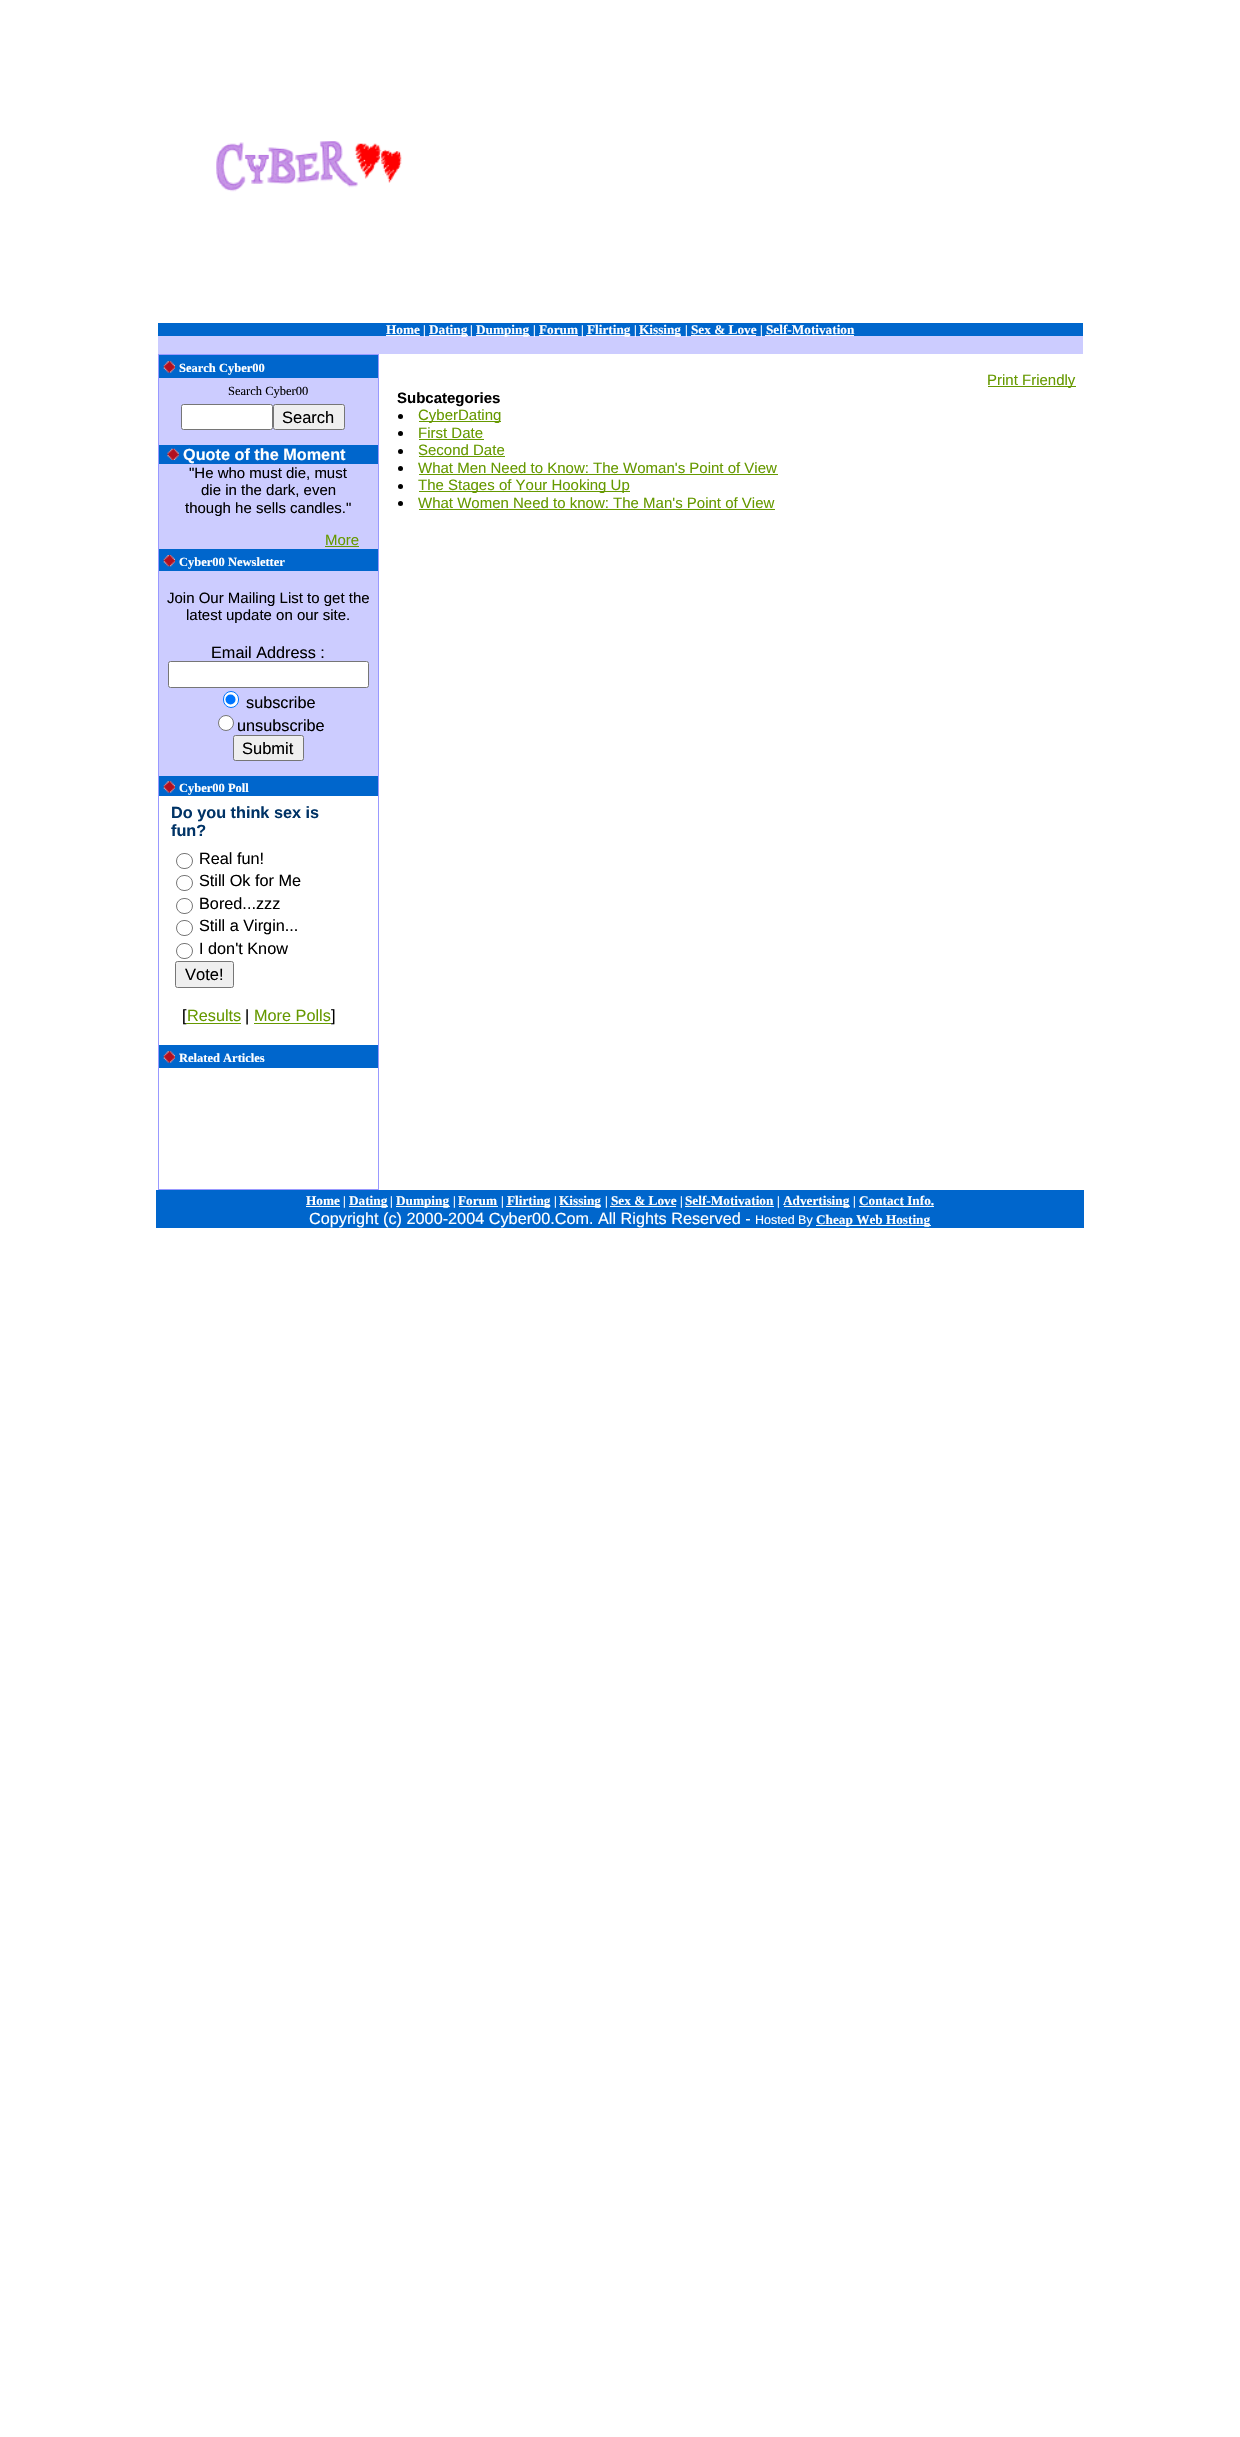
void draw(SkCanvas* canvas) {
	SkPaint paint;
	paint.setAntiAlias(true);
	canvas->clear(0xffffffff);
	canvas->drawImageRect(SkImages::DeferredFromEncodedData(SkData::MakeFromFileName("img1.png")), SkRect::MakeXYWH(216, 141, 186, 51), SkSamplingOptions());
	paint.setColor(0xff0066cc);
	canvas->drawRect(SkRect::MakeXYWH(158, 323, 925, 13), paint);
	SkFont f1(fontMgr->matchFamilyStyle("Liberation Serif", SkFontStyle::Bold()), 13.25);
	f1.setSubpixel(true);
	paint.setColor(0xffffffff);
	canvas->drawString("Home", 386, 334, f1, paint);
	canvas->drawRect(SkRect::MakeXYWH(386, 335, 34, 1), paint);
	paint.setColor(0xffccccff);
	canvas->drawRect(SkRect::MakeXYWH(158, 336, 925, 18), paint);
	SkFont f2(fontMgr->matchFamilyStyle("Liberation Serif", SkFontStyle::Bold()), 12.5);
	f2.setSubpixel(true);
	paint.setColor(0xffffffff);
	canvas->drawString("|", 423, 334, f2, paint);
	canvas->drawRect(SkRect::MakeXYWH(429, 335, 39, 1), paint);
	canvas->drawString("Dating", 429, 334, f1, paint);
	canvas->drawString("|", 470, 334, f2, paint);
	canvas->drawRect(SkRect::MakeXYWH(476, 335, 54, 1), paint);
	canvas->drawString("Dumping", 476, 334, f1, paint);
	canvas->drawString("|", 533, 334, f2, paint);
	canvas->drawString("Forum", 539, 334, f1, paint);
	canvas->drawRect(SkRect::MakeXYWH(539, 335, 39, 1), paint);
	canvas->drawString("|", 581, 334, f2, paint);
	canvas->drawRect(SkRect::MakeXYWH(586, 335, 44, 1), paint);
	canvas->drawString("Flirting", 587, 334, f1, paint);
	canvas->drawString("|", 634, 334, f2, paint);
	canvas->drawRect(SkRect::MakeXYWH(640, 335, 41, 1), paint);
	canvas->drawString("Kissing", 639, 334, f1, paint);
	canvas->drawString("|", 685, 334, f2, paint);
	canvas->drawString("Sex & Love", 691, 334, f1, paint);
	canvas->drawRect(SkRect::MakeXYWH(691, 335, 65, 1), paint);
	canvas->drawString("|", 760, 334, f2, paint);
	canvas->drawRect(SkRect::MakeXYWH(765, 335, 89, 1), paint);
	canvas->drawString("Self-Motivation", 766, 334, f1, paint);
	paint.setColor(0xff9999ff);
	canvas->drawRect(SkRect::MakeXYWH(158, 354, 221, 836), paint);
	paint.setColor(0xffffffff);
	canvas->drawRect(SkRect::MakeXYWH(159, 796, 219, 393), paint);
	paint.setColor(0xff0066cc);
	canvas->drawRect(SkRect::MakeXYWH(159, 355, 219, 23), paint);
	canvas->drawImageRect(SkImages::DeferredFromEncodedData(SkData::MakeFromFileName("img2.png")), SkRect::MakeXYWH(163, 361, 12, 12), SkSamplingOptions());
	paint.setColor(0xffffffff);
	canvas->drawString("Search Cyber00", 179, 372, f2, paint);
	paint.setColor(0xffccccff);
	canvas->drawRect(SkRect::MakeXYWH(159, 378, 219, 67), paint);
	SkFont f3(fontMgr->matchFamilyStyle("Liberation Serif", SkFontStyle::Normal()), 12.5);
	f3.setSubpixel(true);
	paint.setColor(0xff000000);
	canvas->drawString("Search Cyber00", 228, 395, f3, paint);
	paint.setColor(0xffffffff);
	canvas->drawRoundRect(SkRect::MakeXYWH(181.5, 404.5, 91, 25), 2, 2, paint);
	paint.setStroke(true);
	paint.setStrokeWidth(1);
	paint.setColor(0xff767676);
	canvas->drawRoundRect(SkRect::MakeXYWH(181.5, 404.5, 91, 25), 2, 2, paint);
	paint.setStroke(false);
	paint.setColor(0xffefefef);
	canvas->drawRoundRect(SkRect::MakeXYWH(273.5, 404.5, 71, 25), 2, 2, paint);
	paint.setStroke(true);
	paint.setColor(0xff767676);
	canvas->drawRoundRect(SkRect::MakeXYWH(273.5, 404.5, 71, 25), 2, 2, paint);
	SkFont f4(fontMgr->matchFamilyStyle("Liberation Sans", SkFontStyle::Normal()), 16.5);
	f4.setSubpixel(true);
	paint.setStroke(false);
	paint.setColor(0xff000000);
	canvas->drawString("Search", 282, 423, f4, paint);
	paint.setColor(0xff0066cc);
	canvas->drawRect(SkRect::MakeXYWH(159, 445, 219, 19), paint);
	canvas->drawImageRect(SkImages::DeferredFromEncodedData(SkData::MakeFromFileName("img3.png")), SkRect::MakeXYWH(167, 448, 12, 12), SkSamplingOptions());
	SkFont f5(fontMgr->matchFamilyStyle("Liberation Sans", SkFontStyle::Bold()), 16.25);
	f5.setSubpixel(true);
	paint.setColor(0xffffffff);
	canvas->drawString("Quote of the Moment", 183, 460, f5, paint);
	paint.setColor(0xffccccff);
	canvas->drawRect(SkRect::MakeXYWH(159, 464, 219, 85), paint);
	SkFont f6(fontMgr->matchFamilyStyle("Liberation Sans", SkFontStyle::Normal()), 15);
	f6.setSubpixel(true);
	paint.setColor(0xff000000);
	canvas->drawString("\"He who must die, must", 189, 478, f6, paint);
	canvas->drawString("die in the dark, even", 201, 495, f6, paint);
	canvas->drawString("though he sells candles.\"", 185, 513, f6, paint);
	paint.setColor(0xff669900);
	canvas->drawString("More", 325, 545, f6, paint);
	canvas->drawRect(SkRect::MakeXYWH(325, 546, 34, 1), paint);
	paint.setColor(0xff0066cc);
	canvas->drawRect(SkRect::MakeXYWH(159, 549, 219, 22), paint);
	canvas->drawImageRect(SkImages::DeferredFromEncodedData(SkData::MakeFromFileName("img4.png")), SkRect::MakeXYWH(163, 555, 12, 12), SkSamplingOptions());
	paint.setColor(0xffffffff);
	canvas->drawString("Cyber00 Newsletter", 179, 566, f2, paint);
	paint.setColor(0xffccccff);
	canvas->drawRect(SkRect::MakeXYWH(159, 571, 219, 205), paint);
	paint.setColor(0xff000000);
	canvas->drawString("Join Our Mailing List to get the", 167, 603, f6, paint);
	canvas->drawString("latest update on our site.", 186, 620, f6, paint);
	SkFont f7(fontMgr->matchFamilyStyle("Liberation Sans", SkFontStyle::Normal()), 16.25);
	f7.setSubpixel(true);
	canvas->drawString("Email Address :", 211, 658, f7, paint);
	paint.setColor(0xffffffff);
	canvas->drawRoundRect(SkRect::MakeXYWH(168.5, 661.5, 200, 26), 2, 2, paint);
	paint.setStroke(true);
	paint.setColor(0xff767676);
	canvas->drawRoundRect(SkRect::MakeXYWH(168.5, 661.5, 200, 26), 2, 2, paint);
	paint.setStroke(false);
	paint.setColor(0xffffffff);
	canvas->drawRoundRect(SkRect::MakeXYWH(223.5, 691.5, 15, 16), 7.5, 7.5, paint);
	paint.setStroke(true);
	paint.setColor(0xff0075ff);
	canvas->drawRoundRect(SkRect::MakeXYWH(223.5, 691.5, 15, 16), 7.5, 7.5, paint);
	paint.setStroke(false);
	canvas->drawCircle(230.5, 699.5, 5, paint);
	paint.setColor(0xff000000);
	canvas->drawString("subscribe", 246, 708, f7, paint);
	paint.setColor(0xffffffff);
	canvas->drawCircle(226, 723, 7.5, paint);
	paint.setStroke(true);
	paint.setColor(0xff767676);
	canvas->drawCircle(226, 723, 7.5, paint);
	paint.setStroke(false);
	paint.setColor(0xff000000);
	canvas->drawString("unsubscribe", 237, 731, f7, paint);
	paint.setColor(0xffefefef);
	canvas->drawRoundRect(SkRect::MakeXYWH(233.5, 735.5, 70, 25), 2, 2, paint);
	paint.setStroke(true);
	paint.setColor(0xff767676);
	canvas->drawRoundRect(SkRect::MakeXYWH(233.5, 735.5, 70, 25), 2, 2, paint);
	paint.setStroke(false);
	paint.setColor(0xff000000);
	canvas->drawString("Submit", 242, 754, f4, paint);
	paint.setColor(0xff0066cc);
	canvas->drawRect(SkRect::MakeXYWH(159, 776, 219, 20), paint);
	canvas->drawImageRect(SkImages::DeferredFromEncodedData(SkData::MakeFromFileName("img5.png")), SkRect::MakeXYWH(163, 781, 12, 12), SkSamplingOptions());
	paint.setColor(0xffffffff);
	canvas->drawString("Cyber00 Poll", 179, 792, f2, paint);
	paint.setColor(0xff003366);
	canvas->drawString("Do you think sex is", 171, 818, f5, paint);
	canvas->drawString("fun?", 171, 836, f5, paint);
	paint.setStroke(true);
	paint.setColor(0xff767676);
	canvas->drawRoundRect(SkRect::MakeXYWH(176.5, 853.5, 16, 15), 7.5, 7.5, paint);
	paint.setStroke(false);
	paint.setColor(0xff000000);
	canvas->drawString("Real fun!", 199, 864, f7, paint);
	paint.setStroke(true);
	paint.setColor(0xff767676);
	canvas->drawRoundRect(SkRect::MakeXYWH(176.5, 875.5, 16, 15), 7.5, 7.5, paint);
	paint.setStroke(false);
	paint.setColor(0xff000000);
	canvas->drawString("Still Ok for Me", 199, 886, f7, paint);
	paint.setStroke(true);
	paint.setColor(0xff767676);
	canvas->drawRoundRect(SkRect::MakeXYWH(176.5, 898.5, 16, 15), 7.5, 7.5, paint);
	paint.setStroke(false);
	paint.setColor(0xff000000);
	canvas->drawString("Bored...zzz", 199, 909, f7, paint);
	paint.setStroke(true);
	paint.setColor(0xff767676);
	canvas->drawRoundRect(SkRect::MakeXYWH(176.5, 920.5, 16, 15), 7.5, 7.5, paint);
	paint.setStroke(false);
	paint.setColor(0xff000000);
	canvas->drawString("Still a Virgin...", 199, 931, f7, paint);
	paint.setStroke(true);
	paint.setColor(0xff767676);
	canvas->drawRoundRect(SkRect::MakeXYWH(176.5, 943.5, 16, 15), 7.5, 7.5, paint);
	paint.setStroke(false);
	paint.setColor(0xff000000);
	canvas->drawString("I don't Know", 199, 954, f7, paint);
	paint.setColor(0xffefefef);
	canvas->drawRoundRect(SkRect::MakeXYWH(175.5, 961.5, 58, 26), 2, 2, paint);
	paint.setStroke(true);
	paint.setColor(0xff767676);
	canvas->drawRoundRect(SkRect::MakeXYWH(175.5, 961.5, 58, 26), 2, 2, paint);
	paint.setStroke(false);
	paint.setColor(0xff000000);
	canvas->drawString("Vote!", 185, 980, f4, paint);
	canvas->drawString("[", 182, 1021, f7, paint);
	paint.setColor(0xff669900);
	canvas->drawString("Results", 187, 1021, f7, paint);
	canvas->drawRect(SkRect::MakeXYWH(186, 1023, 55, 1), paint);
	paint.setColor(0xff000000);
	canvas->drawString("|", 245, 1021, f7, paint);
	paint.setColor(0xff669900);
	canvas->drawString("More Polls", 254, 1021, f7, paint);
	canvas->drawRect(SkRect::MakeXYWH(254, 1023, 77, 1), paint);
	paint.setColor(0xff000000);
	canvas->drawString("]", 331, 1021, f7, paint);
	paint.setColor(0xff0066cc);
	canvas->drawRect(SkRect::MakeXYWH(159, 1045, 219, 23), paint);
	canvas->drawImageRect(SkImages::DeferredFromEncodedData(SkData::MakeFromFileName("img2.png")), SkRect::MakeXYWH(163, 1051, 12, 12), SkSamplingOptions());
	paint.setColor(0xffffffff);
	canvas->drawString("Related Articles", 179, 1062, f2, paint);
	paint.setColor(0xff669900);
	canvas->drawRect(SkRect::MakeXYWH(988, 386, 88, 1), paint);
	canvas->drawString("Print Friendly", 987, 385, f6, paint);
	SkFont f8(fontMgr->matchFamilyStyle("Liberation Sans", SkFontStyle::Bold()), 15);
	f8.setSubpixel(true);
	paint.setColor(0xff000000);
	canvas->drawString("Subcategories", 397, 403, f8, paint);
	canvas->drawCircle(400.5, 416.5, 2.5, paint);
	paint.setColor(0xff669900);
	canvas->drawRect(SkRect::MakeXYWH(419, 421, 82, 1), paint);
	canvas->drawString("CyberDating", 418, 420, f6, paint);
	paint.setColor(0xff000000);
	canvas->drawCircle(400.5, 433.5, 2.5, paint);
	paint.setColor(0xff669900);
	canvas->drawString("First Date", 418, 438, f6, paint);
	canvas->drawRect(SkRect::MakeXYWH(419, 439, 65, 1), paint);
	paint.setColor(0xff000000);
	canvas->drawCircle(400.5, 451.5, 2.5, paint);
	paint.setColor(0xff669900);
	canvas->drawString("Second Date", 418, 455, f6, paint);
	canvas->drawRect(SkRect::MakeXYWH(419, 456, 86, 1), paint);
	paint.setColor(0xff000000);
	canvas->drawCircle(400.5, 468.5, 2.5, paint);
	paint.setColor(0xff669900);
	canvas->drawString("What Men Need to Know: The Woman's Point of View", 418, 473, f6, paint);
	canvas->drawRect(SkRect::MakeXYWH(419, 474, 359, 1), paint);
	paint.setColor(0xff000000);
	canvas->drawCircle(400.5, 486.5, 2.5, paint);
	paint.setColor(0xff669900);
	canvas->drawRect(SkRect::MakeXYWH(419, 491, 211, 1), paint);
	canvas->drawString("The Stages of Your Hooking Up", 418, 490, f6, paint);
	paint.setColor(0xff000000);
	canvas->drawCircle(400.5, 503.5, 2.5, paint);
	paint.setColor(0xff669900);
	canvas->drawString("What Women Need to know: The Man's Point of View", 418, 508, f6, paint);
	canvas->drawRect(SkRect::MakeXYWH(419, 509, 356, 1), paint);
	paint.setColor(0xff0066cc);
	canvas->drawRect(SkRect::MakeXYWH(156, 1190, 928, 38), paint);
	paint.setColor(0xffffffff);
	canvas->drawString("Home", 306, 1205, f1, paint);
	canvas->drawRect(SkRect::MakeXYWH(306, 1206, 34, 1), paint);
	canvas->drawString("|", 343, 1205, f2, paint);
	canvas->drawRect(SkRect::MakeXYWH(349, 1206, 39, 1), paint);
	canvas->drawString("Dating", 349, 1205, f1, paint);
	canvas->drawString("|", 390, 1205, f2, paint);
	canvas->drawRect(SkRect::MakeXYWH(396, 1206, 54, 1), paint);
	canvas->drawString("Dumping", 396, 1205, f1, paint);
	canvas->drawString("|", 453, 1205, f2, paint);
	canvas->drawString("Forum", 458, 1205, f1, paint);
	canvas->drawRect(SkRect::MakeXYWH(459, 1206, 39, 1), paint);
	canvas->drawString("|", 501, 1205, f2, paint);
	canvas->drawRect(SkRect::MakeXYWH(506, 1206, 44, 1), paint);
	canvas->drawString("Flirting", 507, 1205, f1, paint);
	canvas->drawString("|", 554, 1205, f2, paint);
	canvas->drawRect(SkRect::MakeXYWH(560, 1206, 41, 1), paint);
	canvas->drawString("Kissing", 559, 1205, f1, paint);
	canvas->drawString("|", 605, 1205, f2, paint);
	canvas->drawString("Sex & Love", 611, 1205, f1, paint);
	canvas->drawRect(SkRect::MakeXYWH(610, 1206, 66, 1), paint);
	canvas->drawString("|", 680, 1205, f2, paint);
	canvas->drawString("Self-Motivation", 685, 1205, f1, paint);
	canvas->drawRect(SkRect::MakeXYWH(685, 1206, 89, 1), paint);
	canvas->drawString("|", 777, 1205, f2, paint);
	canvas->drawRect(SkRect::MakeXYWH(784, 1206, 66, 1), paint);
	canvas->drawString("Advertising", 783, 1205, f1, paint);
	canvas->drawString("|", 853, 1205, f2, paint);
	canvas->drawString("Contact Info.", 859, 1205, f1, paint);
	canvas->drawRect(SkRect::MakeXYWH(859, 1206, 75, 1), paint);
	canvas->drawString("Copyright (c) 2000-2004 Cyber00.Com. All Rights Reserved -", 309, 1224, f7, paint);
	SkFont f9(fontMgr->matchFamilyStyle("Liberation Sans", SkFontStyle::Normal()), 12.5);
	f9.setSubpixel(true);
	canvas->drawString("Hosted By", 755, 1224, f9, paint);
	canvas->drawRect(SkRect::MakeXYWH(816, 1225, 115, 1), paint);
	canvas->drawString("Cheap Web Hosting", 816, 1224, f1, paint);
}
